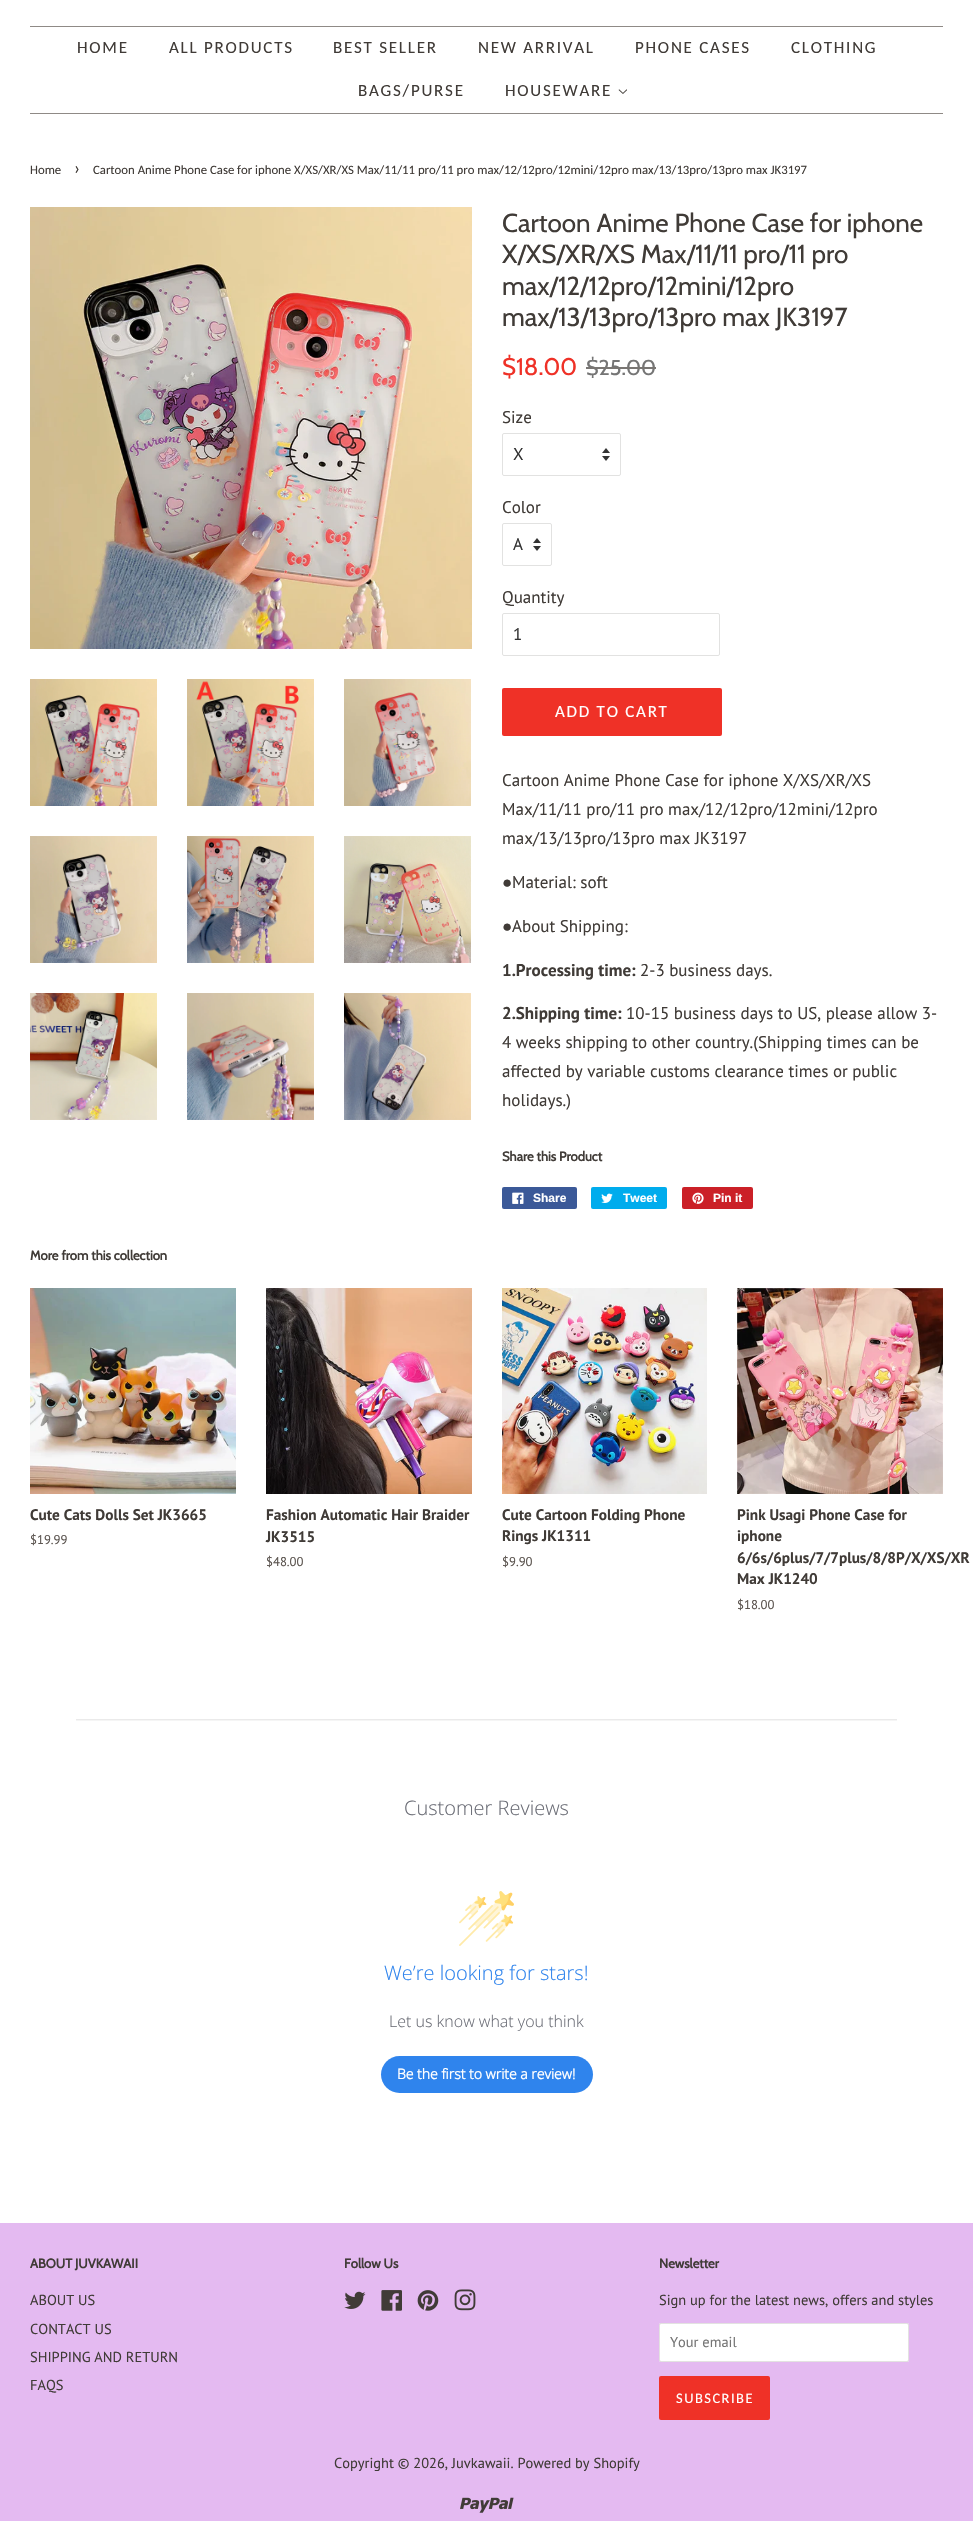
void draw(SkCanvas* canvas) {
	SkPaint paint;
	paint.setAntiAlias(true);
	auto spacedText = [&](const char* s, float x, float y, const SkFont& font, const SkPaint& ink, float letter, float word) {
		std::vector<SkGlyphID> glyphs(font.countText(s, strlen(s), SkTextEncoding::kUTF8));
		std::vector<float> xs(glyphs.size());
		font.textToGlyphs(s, strlen(s), SkTextEncoding::kUTF8, glyphs);
		font.getXPos(glyphs, xs, x);
		float extra = 0;
		for (size_t i = 0; i < glyphs.size(); i++) {
			xs[i] += extra;
			extra += letter + word * (glyphs[i] == font.unicharToGlyph(' '));
		}
		canvas->drawTextBlob(SkTextBlob::MakeFromPosHGlyphs(glyphs, xs, y, font), 0, 0, ink);
	};
	canvas->clear(0xffffffff);
	paint.setColor(0xff8f8a86);
	canvas->drawRect(SkRect::MakeXYWH(30, 26, 913, 1), paint);
	canvas->drawRect(SkRect::MakeXYWH(30, 113, 913, 1), paint);
	SkFont f1(fontMgr->matchFamilyStyle("Carlito", SkFontStyle::Normal()), 17);
	f1.setSubpixel(true);
	paint.setColor(0xff403b37);
	spacedText("HOME", 77, 53, f1, paint, 1.75, 0);
	spacedText("ALL PRODUCTS", 169, 53, f1, paint, 1.75, 0);
	spacedText("BEST SELLER", 333, 53, f1, paint, 1.75, 0);
	spacedText("NEW ARRIVAL", 478, 53, f1, paint, 1.75, 0);
	spacedText("PHONE CASES", 635, 53, f1, paint, 1.75, 0);
	spacedText("CLOTHING", 791, 53, f1, paint, 1.75, 0);
	spacedText("BAGS/PURSE", 358, 96, f1, paint, 1.75, 0);
	spacedText("HOUSEWARE", 505, 96, f1, paint, 1.75, 0);
	canvas->drawImageRect(SkImages::DeferredFromEncodedData(SkData::MakeFromFileName("img1.png")), SkRect::MakeXYWH(618, 89, 9, 5), SkSamplingOptions());
	SkFont f2(fontMgr->matchFamilyStyle("Carlito", SkFontStyle::Normal()), 12.75);
	f2.setSubpixel(true);
	canvas->drawString("Home", 30, 174, f2, paint);
	SkFont f3(fontMgr->matchFamilyStyle("Carlito", SkFontStyle::Normal()), 18);
	f3.setSubpixel(true);
	canvas->drawString("›", 74, 174, f3, paint);
	canvas->drawString("Cartoon Anime Phone Case for iphone X/XS/XR/XS Max/11/11 pro/11 pro max/12/12pro/12mini/12pro max/13/13pro/13pro max JK3197", 93, 174, f2, paint);
	canvas->drawImageRect(SkImages::DeferredFromEncodedData(SkData::MakeFromFileName("img2.png")), SkRect::MakeXYWH(30, 207, 442, 442), SkSamplingOptions());
	canvas->drawImageRect(SkImages::DeferredFromEncodedData(SkData::MakeFromFileName("img3.png")), SkRect::MakeXYWH(30, 679, 127, 127), SkSamplingOptions());
	canvas->drawImageRect(SkImages::DeferredFromEncodedData(SkData::MakeFromFileName("img4.png")), SkRect::MakeXYWH(187, 679, 127, 127), SkSamplingOptions());
	canvas->drawImageRect(SkImages::DeferredFromEncodedData(SkData::MakeFromFileName("img5.png")), SkRect::MakeXYWH(344, 679, 127, 127), SkSamplingOptions());
	canvas->drawImageRect(SkImages::DeferredFromEncodedData(SkData::MakeFromFileName("img6.png")), SkRect::MakeXYWH(30, 836, 127, 127), SkSamplingOptions());
	canvas->drawImageRect(SkImages::DeferredFromEncodedData(SkData::MakeFromFileName("img7.png")), SkRect::MakeXYWH(187, 836, 127, 127), SkSamplingOptions());
	canvas->drawImageRect(SkImages::DeferredFromEncodedData(SkData::MakeFromFileName("img8.png")), SkRect::MakeXYWH(344, 836, 127, 127), SkSamplingOptions());
	canvas->drawImageRect(SkImages::DeferredFromEncodedData(SkData::MakeFromFileName("img9.png")), SkRect::MakeXYWH(30, 993, 127, 127), SkSamplingOptions());
	canvas->drawImageRect(SkImages::DeferredFromEncodedData(SkData::MakeFromFileName("img10.png")), SkRect::MakeXYWH(187, 993, 127, 127), SkSamplingOptions());
	canvas->drawImageRect(SkImages::DeferredFromEncodedData(SkData::MakeFromFileName("img11.png")), SkRect::MakeXYWH(344, 993, 127, 127), SkSamplingOptions());
	SkFont f4(fontMgr->matchFamilyStyle("Cabin", SkFontStyle::Normal()), 26);
	f4.setSubpixel(true);
	canvas->drawString("Cartoon Anime Phone Case for iphone", 502, 232, f4, paint);
	canvas->drawString("X/XS/XR/XS Max/11/11 pro/11 pro", 502, 263, f4, paint);
	canvas->drawString("max/12/12pro/12mini/12pro", 502, 295, f4, paint);
	canvas->drawString("max/13/13pro/13pro max JK3197", 502, 326, f4, paint);
	SkFont f5(fontMgr->matchFamilyStyle("Cabin", SkFontStyle::Normal()), 24);
	f5.setSubpixel(true);
	paint.setColor(0xffef3127);
	canvas->drawString("$18.00", 502, 375, f5, paint);
	SkFont f6(fontMgr->matchFamilyStyle("Cabin", SkFontStyle::Normal()), 21.5);
	f6.setSubpixel(true);
	paint.setColor(0xff757575);
	canvas->drawString("$25.00", 586, 375, f6, paint);
	paint.setColor(0xff797673);
	canvas->drawRect(SkRect::MakeXYWH(586, 367, 70, 2), paint);
	SkFont f7(fontMgr->matchFamilyStyle("PT Sans", SkFontStyle::Normal()), 17);
	f7.setSubpixel(true);
	paint.setColor(0xff403b37);
	canvas->drawString("Size", 502, 423, f7, paint);
	canvas->drawImageRect(SkImages::DeferredFromEncodedData(SkData::MakeFromFileName("img12.png")), SkRect::MakeXYWH(602, 448, 8, 13), SkSamplingOptions());
	paint.setStroke(true);
	paint.setStrokeWidth(1);
	paint.setColor(0xffe2e2e1);
	canvas->drawRoundRect(SkRect::MakeXYWH(502.5, 433.5, 118, 42), 1.5, 1.5, paint);
	paint.setStroke(false);
	paint.setColor(0xff333333);
	canvas->drawString("X", 513, 460, f7, paint);
	paint.setColor(0xff403b37);
	canvas->drawString("Color", 502, 513, f7, paint);
	canvas->drawImageRect(SkImages::DeferredFromEncodedData(SkData::MakeFromFileName("img12.png")), SkRect::MakeXYWH(533, 538, 8, 13), SkSamplingOptions());
	paint.setStroke(true);
	paint.setColor(0xffe2e2e1);
	canvas->drawRoundRect(SkRect::MakeXYWH(502.5, 523.5, 49, 42), 1.5, 1.5, paint);
	paint.setStroke(false);
	paint.setColor(0xff333333);
	canvas->drawString("A", 513, 550, f7, paint);
	paint.setColor(0xff403b37);
	canvas->drawString("Quantity", 502, 603, f7, paint);
	paint.setStroke(true);
	paint.setColor(0xffe2e2e1);
	canvas->drawRoundRect(SkRect::MakeXYWH(502.5, 613.5, 217, 42), 1.5, 1.5, paint);
	paint.setStroke(false);
	paint.setColor(0xff333333);
	canvas->drawString("1", 513, 640, f7, paint);
	paint.setColor(0xffef3127);
	canvas->drawRoundRect(SkRect::MakeXYWH(502, 688, 220, 48), 2, 2, paint);
	paint.setColor(0xffffffff);
	spacedText("ADD TO CART", 555, 717, f1, paint, 1.75, 0);
	paint.setColor(0xff403b37);
	canvas->drawString("Cartoon Anime Phone Case for iphone X/XS/XR/XS", 502, 786, f7, paint);
	canvas->drawString("Max/11/11 pro/11 pro max/12/12pro/12mini/12pro", 502, 815, f7, paint);
	canvas->drawString("max/13/13pro/13pro max JK3197", 502, 844, f7, paint);
	SkFont f8(fontMgr->matchFamilyStyle("Liberation Sans", SkFontStyle::Normal()), 17);
	f8.setSubpixel(true);
	canvas->drawString("●", 502, 888, f8, paint);
	canvas->drawString("Material: soft", 512, 888, f7, paint);
	canvas->drawString("●", 502, 932, f8, paint);
	canvas->drawString("About Shipping:", 512, 932, f7, paint);
	SkFont f9(fontMgr->matchFamilyStyle("PT Sans", SkFontStyle::Bold()), 17);
	f9.setSubpixel(true);
	canvas->drawString("1.Processing time:", 502, 976, f9, paint);
	canvas->drawString("2-3 business days.", 640, 976, f7, paint);
	canvas->drawString("2.Shipping time:", 502, 1019, f9, paint);
	canvas->drawString("10-15 business days to US, please allow 3-", 626, 1019, f7, paint);
	canvas->drawString("4 weeks shipping to other country.(Shipping times can be", 502, 1048, f7, paint);
	canvas->drawString("affected by variable customs clearance times or public", 502, 1077, f7, paint);
	canvas->drawString("holidays.)", 502, 1106, f7, paint);
	SkFont f10(fontMgr->matchFamilyStyle("Cabin", SkFontStyle::Bold()), 13);
	f10.setSubpixel(true);
	canvas->drawString("Share this Product", 502, 1161, f10, paint);
	paint.setColor(0xff3b5998);
	canvas->drawRoundRect(SkRect::MakeXYWH(502, 1187, 75, 22), 2, 2, paint);
	canvas->drawImageRect(SkImages::DeferredFromEncodedData(SkData::MakeFromFileName("img13.png")), SkRect::MakeXYWH(512, 1192, 12, 12), SkSamplingOptions());
	SkFont f11(fontMgr->matchFamilyStyle("Liberation Sans", SkFontStyle::Bold()), 12);
	f11.setSubpixel(true);
	paint.setColor(0xffffffff);
	canvas->drawString("Share", 533, 1202, f11, paint);
	paint.setColor(0xff00aced);
	canvas->drawRoundRect(SkRect::MakeXYWH(591, 1187, 76, 22), 2, 2, paint);
	canvas->drawImageRect(SkImages::DeferredFromEncodedData(SkData::MakeFromFileName("img14.png")), SkRect::MakeXYWH(601, 1193, 12, 10), SkSamplingOptions());
	paint.setColor(0xffffffff);
	canvas->drawString("Tweet", 623, 1202, f11, paint);
	paint.setColor(0xffcb2027);
	canvas->drawRoundRect(SkRect::MakeXYWH(682, 1187, 71, 22), 2, 2, paint);
	canvas->drawImageRect(SkImages::DeferredFromEncodedData(SkData::MakeFromFileName("img15.png")), SkRect::MakeXYWH(692, 1192, 12, 12), SkSamplingOptions());
	paint.setColor(0xffffffff);
	canvas->drawString("Pin it", 713, 1202, f11, paint);
	paint.setColor(0xff403b37);
	canvas->drawString("More from this collection", 30, 1260, f10, paint);
	canvas->drawImageRect(SkImages::DeferredFromEncodedData(SkData::MakeFromFileName("img16.png")), SkRect::MakeXYWH(30, 1288, 206, 206), SkSamplingOptions());
	SkFont f12(fontMgr->matchFamilyStyle("PT Sans", SkFontStyle::Bold()), 15.25);
	f12.setSubpixel(true);
	canvas->drawString("Cute Cats Dolls Set JK3665", 30, 1520, f12, paint);
	SkFont f13(fontMgr->matchFamilyStyle("PT Sans", SkFontStyle::Normal()), 12.75);
	f13.setSubpixel(true);
	paint.setColor(0xff5b544f);
	canvas->drawString("$19.99", 30, 1544, f13, paint);
	canvas->drawImageRect(SkImages::DeferredFromEncodedData(SkData::MakeFromFileName("img17.png")), SkRect::MakeXYWH(266, 1288, 206, 206), SkSamplingOptions());
	paint.setColor(0xff403b37);
	canvas->drawString("Fashion Automatic Hair Braider", 266, 1520, f12, paint);
	canvas->drawString("JK3515", 266, 1542, f12, paint);
	paint.setColor(0xff5b544f);
	canvas->drawString("$48.00", 266, 1566, f13, paint);
	canvas->drawImageRect(SkImages::DeferredFromEncodedData(SkData::MakeFromFileName("img18.png")), SkRect::MakeXYWH(502, 1288, 205, 206), SkSamplingOptions());
	paint.setColor(0xff403b37);
	canvas->drawString("Cute Cartoon Folding Phone", 502, 1520, f12, paint);
	canvas->drawString("Rings JK1311", 502, 1541, f12, paint);
	paint.setColor(0xff5b544f);
	canvas->drawString("$9.90", 502, 1566, f13, paint);
	canvas->drawImageRect(SkImages::DeferredFromEncodedData(SkData::MakeFromFileName("img19.png")), SkRect::MakeXYWH(737, 1288, 206, 206), SkSamplingOptions());
	paint.setColor(0xff403b37);
	canvas->drawString("Pink Usagi Phone Case for", 737, 1520, f12, paint);
	canvas->drawString("iphone", 737, 1541, f12, paint);
	canvas->drawString("6/6s/6plus/7/7plus/8/8P/X/XS/XR", 737, 1563, f12, paint);
	canvas->drawString("Max JK1240", 737, 1584, f12, paint);
	paint.setColor(0xff5b544f);
	canvas->drawString("$18.00", 737, 1609, f13, paint);
	canvas->drawImageRect(SkImages::DeferredFromEncodedData(SkData::MakeFromFileName("img20.png")), SkRect::MakeXYWH(76, 1719, 821, 2), SkSamplingOptions());
	SkFont f14(fontMgr->matchFamilyStyle("Open Sans", SkFontStyle(300, SkFontStyle::kNormal_Width, SkFontStyle::kUpright_Slant)), 20);
	f14.setSubpixel(true);
	paint.setColor(0xff6b6d76);
	canvas->drawString("Customer Reviews", 404, 1815, f14, paint);
	canvas->drawImageRect(SkImages::DeferredFromEncodedData(SkData::MakeFromFileName("img21.png")), SkRect::MakeXYWH(459, 1891, 55, 55), SkSamplingOptions());
	paint.setColor(0xff2f84ed);
	canvas->drawString("We’re looking for stars!", 384, 1980, f14, paint);
	SkFont f15(fontMgr->matchFamilyStyle("Open Sans", SkFontStyle(300, SkFontStyle::kNormal_Width, SkFontStyle::kUpright_Slant)), 16);
	f15.setSubpixel(true);
	paint.setColor(0xff6b6d76);
	canvas->drawString("Let us know what you think", 389, 2027, f15, paint);
	paint.setColor(0xff2f84ed);
	canvas->drawRoundRect(SkRect::MakeXYWH(381, 2056, 212, 37), 18.5, 18.5, paint);
	SkFont f16(fontMgr->matchFamilyStyle("Open Sans", SkFontStyle::Bold()), 14);
	f16.setSubpixel(true);
	paint.setColor(0xffffffff);
	canvas->drawString("Be the first to write a review!", 397, 2079, f16, paint);
	paint.setColor(0xffe4baf1);
	canvas->drawRect(SkRect::MakeXYWH(0, 2223, 973, 298), paint);
	paint.setColor(0xff403b37);
	canvas->drawString("ABOUT JUVKAWAII", 30, 2268, f10, paint);
	SkFont f17(fontMgr->matchFamilyStyle("PT Sans", SkFontStyle::Normal()), 14.45);
	f17.setSubpixel(true);
	canvas->drawString("ABOUT US", 30, 2305, f17, paint);
	canvas->drawString("CONTACT US", 30, 2334, f17, paint);
	canvas->drawString("SHIPPING AND RETURN", 30, 2362, f17, paint);
	canvas->drawString("FAQS", 30, 2390, f17, paint);
	canvas->drawString("Follow Us", 344, 2268, f10, paint);
	canvas->drawImageRect(SkImages::DeferredFromEncodedData(SkData::MakeFromFileName("img22.png")), SkRect::MakeXYWH(344, 2291, 22, 18), SkSamplingOptions());
	canvas->drawImageRect(SkImages::DeferredFromEncodedData(SkData::MakeFromFileName("img23.png")), SkRect::MakeXYWH(381, 2290, 21, 21), SkSamplingOptions());
	canvas->drawImageRect(SkImages::DeferredFromEncodedData(SkData::MakeFromFileName("img24.png")), SkRect::MakeXYWH(417, 2290, 22, 21), SkSamplingOptions());
	canvas->drawImageRect(SkImages::DeferredFromEncodedData(SkData::MakeFromFileName("img25.png")), SkRect::MakeXYWH(454, 2289, 22, 22), SkSamplingOptions());
	canvas->drawString("Newsletter", 659, 2268, f10, paint);
	canvas->drawString("Sign up for the latest news, offers and styles", 659, 2305, f17, paint);
	paint.setColor(0xffffffff);
	canvas->drawRoundRect(SkRect::MakeXYWH(659, 2323, 250, 39), 2, 2, paint);
	paint.setStroke(true);
	paint.setColor(0x26403b37);
	canvas->drawRoundRect(SkRect::MakeXYWH(659.5, 2323.5, 249, 38), 1.5, 1.5, paint);
	paint.setStroke(false);
	paint.setColor(0xff757575);
	canvas->drawString("Your email", 670, 2347, f17, paint);
	paint.setColor(0xffef3127);
	canvas->drawRoundRect(SkRect::MakeXYWH(659, 2376, 111, 44), 2, 2, paint);
	SkFont f18(fontMgr->matchFamilyStyle("Carlito", SkFontStyle::Normal()), 14.45);
	f18.setSubpixel(true);
	paint.setColor(0xffffffff);
	spacedText("SUBSCRIBE", 676, 2403, f18, paint, 1.5, 0);
	paint.setColor(0xff403b37);
	canvas->drawString("Copyright © 2026, Juvkawaii. Powered by Shopify", 334, 2468, f17, paint);
	canvas->drawImageRect(SkImages::DeferredFromEncodedData(SkData::MakeFromFileName("img26.png")), SkRect::MakeXYWH(460, 2497, 54, 16), SkSamplingOptions());
}
